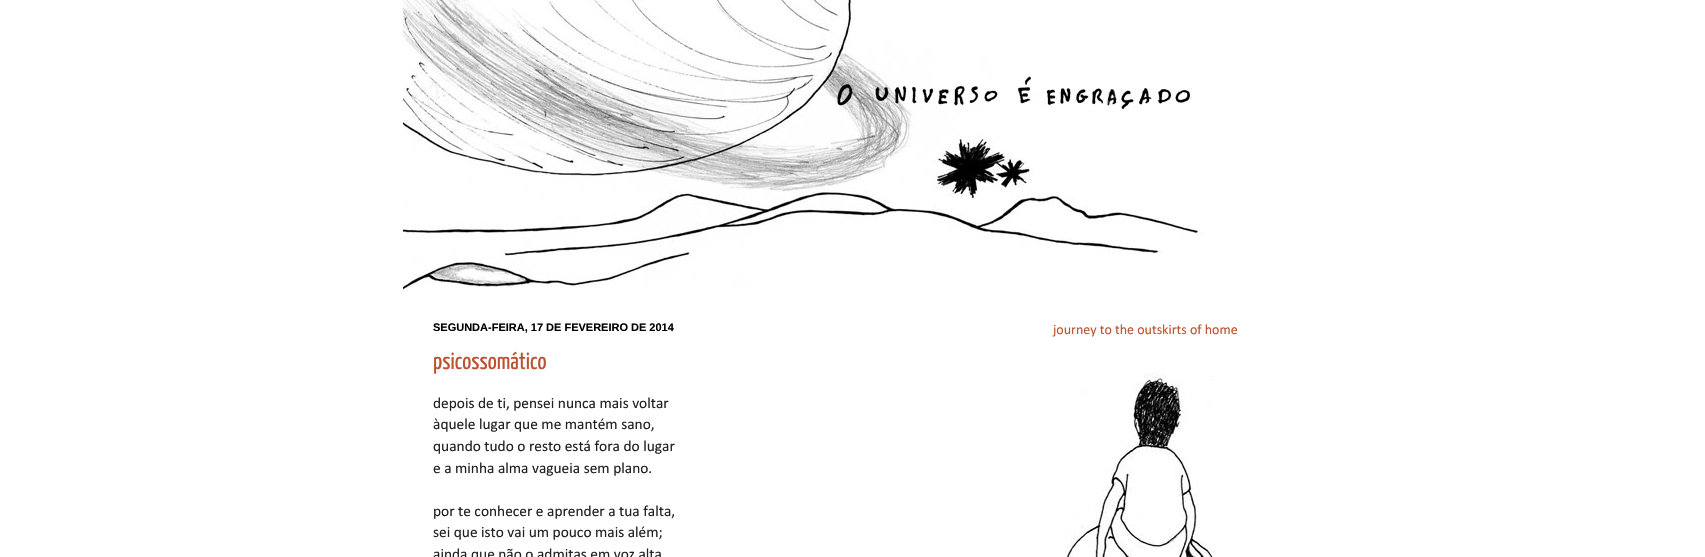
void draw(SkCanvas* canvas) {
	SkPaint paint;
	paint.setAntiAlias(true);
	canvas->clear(0xffffffff);
	canvas->drawImageRect(SkImages::DeferredFromEncodedData(SkData::MakeFromFileName("img1.png")), SkRect::MakeXYWH(403, 0, 800, 290), SkSamplingOptions());
	SkFont f1(fontMgr->matchFamilyStyle("Liberation Sans", SkFontStyle::Bold()), 11);
	f1.setSubpixel(true);
	paint.setColor(0xff000000);
	canvas->drawString("SEGUNDA-FEIRA, 17 DE FEVEREIRO DE 2014", 433, 331, f1, paint);
	SkFont f2(fontMgr->matchFamilyStyle("Yanone Kaffeesatz", SkFontStyle(200, SkFontStyle::kNormal_Width, SkFontStyle::kUpright_Slant)), 24);
	f2.setSubpixel(true);
	paint.setColor(0xffbb5332);
	canvas->drawString("psicossomático", 433, 369, f2, paint);
	SkFont f3(fontMgr->matchFamilyStyle("Calibri", SkFontStyle::Normal()), 15.4);
	f3.setSubpixel(true);
	paint.setColor(0xff222222);
	canvas->drawString("depois de ti, pensei nunca mais voltar", 433, 408, f3, paint);
	canvas->drawString("àquele lugar que me mantém sano,", 433, 429, f3, paint);
	canvas->drawString("quando tudo o resto está fora do lugar", 433, 451, f3, paint);
	canvas->drawString("e a minha alma vagueia sem plano.", 433, 473, f3, paint);
	canvas->drawString("por te conhecer e aprender a tua falta,", 433, 516, f3, paint);
	canvas->drawString("sei que isto vai um pouco mais além;", 433, 537, f3, paint);
	canvas->drawString("ainda que não o admitas em voz alta", 433, 559, f3, paint);
	SkFont f4(fontMgr->matchFamilyStyle("Calibri", SkFontStyle::Normal()), 14);
	f4.setSubpixel(true);
	paint.setColor(0xffbb5332);
	canvas->drawString("journey to the outskirts of home", 1053, 334, f4, paint);
	canvas->drawImageRect(SkImages::DeferredFromEncodedData(SkData::MakeFromFileName("img2.png")), SkRect::MakeXYWH(1063, 373, 152, 184), SkSamplingOptions());
}
